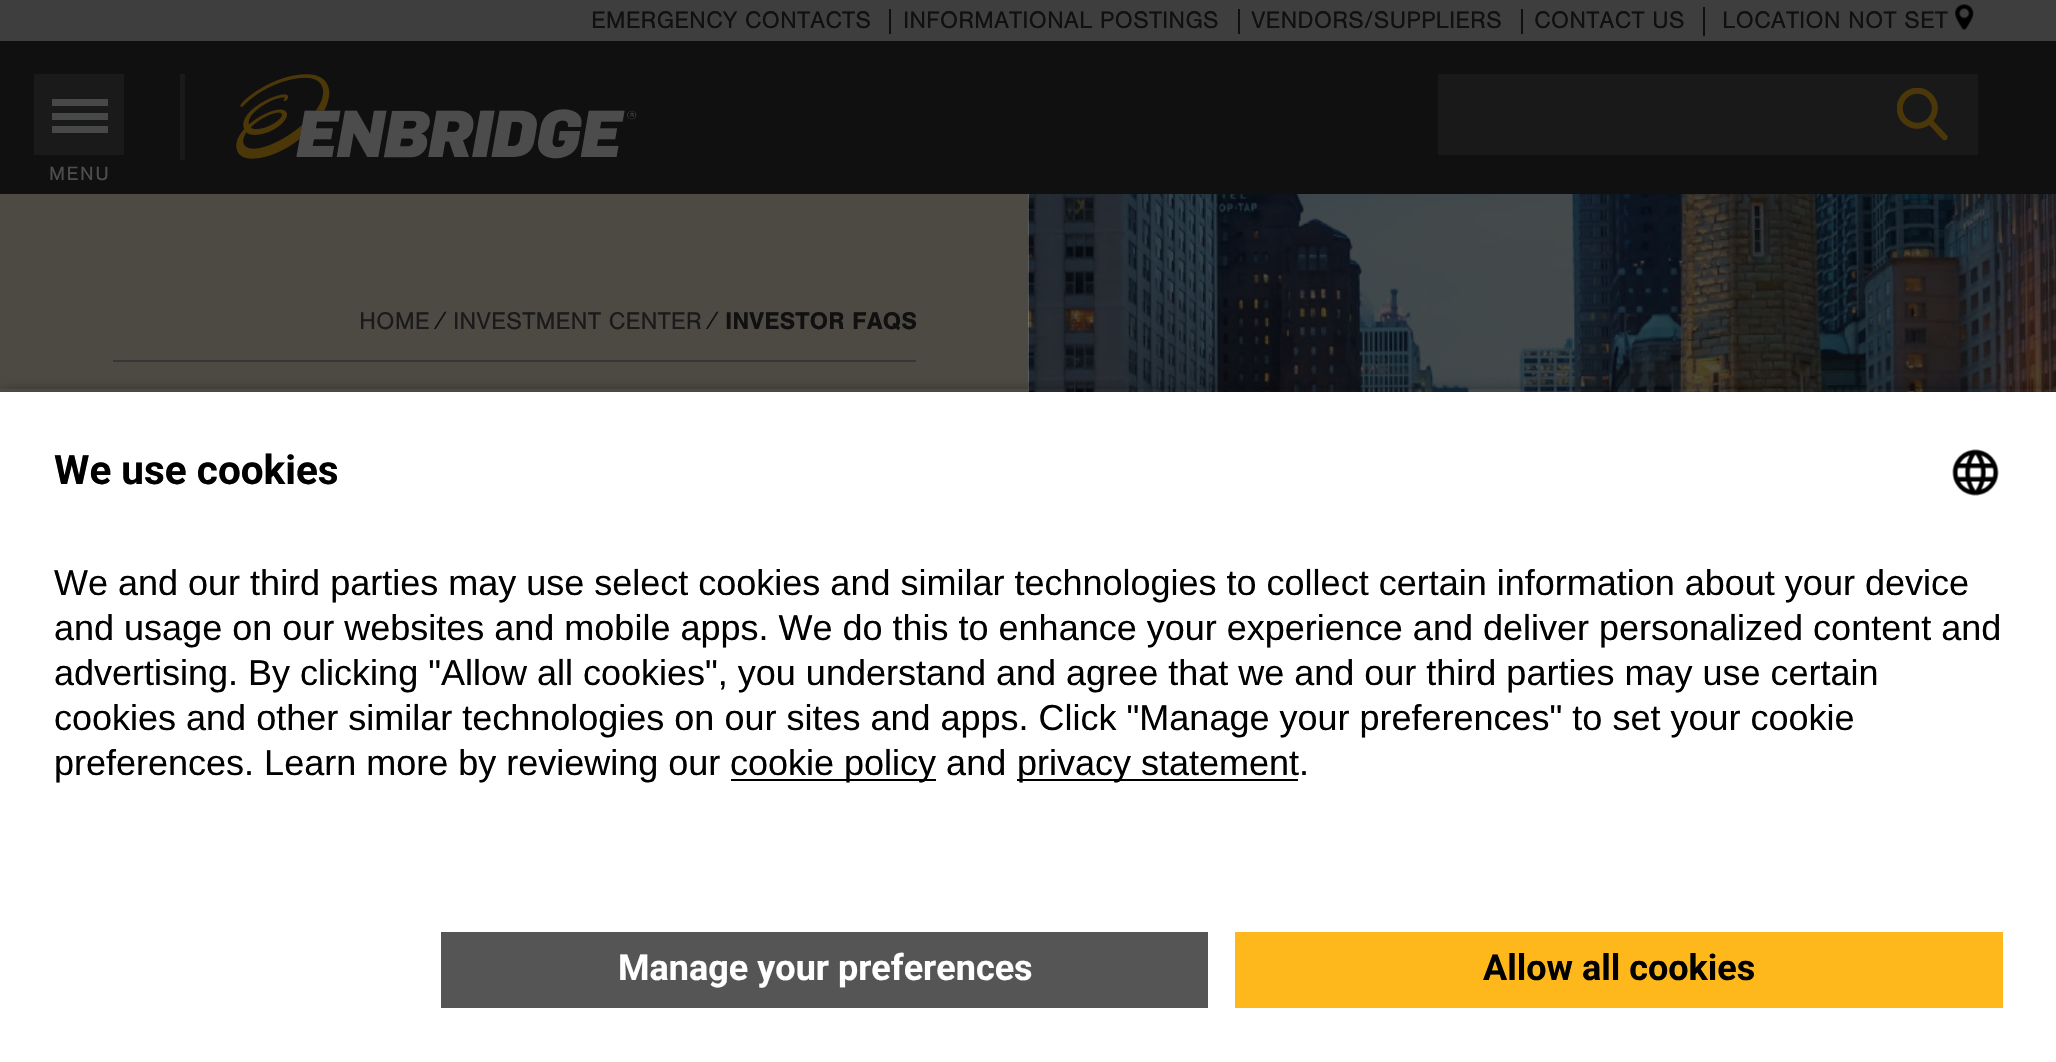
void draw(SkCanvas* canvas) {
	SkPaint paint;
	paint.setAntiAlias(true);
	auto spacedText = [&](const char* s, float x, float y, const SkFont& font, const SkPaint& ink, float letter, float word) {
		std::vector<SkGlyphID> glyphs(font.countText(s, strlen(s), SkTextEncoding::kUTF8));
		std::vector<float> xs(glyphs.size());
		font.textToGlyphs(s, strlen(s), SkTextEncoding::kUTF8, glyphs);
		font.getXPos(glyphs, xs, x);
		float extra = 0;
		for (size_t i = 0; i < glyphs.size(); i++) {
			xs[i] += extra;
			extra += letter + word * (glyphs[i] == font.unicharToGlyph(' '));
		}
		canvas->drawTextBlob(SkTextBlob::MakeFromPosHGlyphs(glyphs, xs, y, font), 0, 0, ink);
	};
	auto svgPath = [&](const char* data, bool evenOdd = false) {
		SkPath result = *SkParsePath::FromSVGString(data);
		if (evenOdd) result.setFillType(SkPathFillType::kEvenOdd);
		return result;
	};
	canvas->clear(0xffffffff);
	paint.setColor(0xff3e3e3e);
	canvas->drawRect(SkRect::MakeXYWH(0, 0, 2056, 41), paint);
	SkFont f1(fontMgr->matchFamilyStyle("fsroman", SkFontStyle::Normal()), 24.75);
	f1.setSubpixel(true);
	paint.setColor(0xff101010);
	canvas->drawString("EMERGENCY CONTACTS", 591, 28, f1, paint);
	canvas->drawRect(SkRect::MakeXYWH(889, 9, 2, 25), paint);
	canvas->drawString("INFORMATIONAL POSTINGS", 903, 28, f1, paint);
	canvas->drawRect(SkRect::MakeXYWH(1238, 9, 2, 25), paint);
	canvas->drawString("VENDORS/SUPPLIERS", 1251, 28, f1, paint);
	canvas->drawRect(SkRect::MakeXYWH(1521, 9, 2, 25), paint);
	canvas->drawString("CONTACT US", 1534, 28, f1, paint);
	canvas->drawRect(SkRect::MakeXYWH(1703, 7, 2, 29), paint);
	canvas->drawString("LOCATION NOT SET", 1722, 28, f1, paint);
	canvas->drawImageRect(SkImages::DeferredFromEncodedData(SkData::MakeFromFileName("img1.png")), SkRect::MakeXYWH(1955, 4, 19, 26), SkSamplingOptions());
	canvas->drawRect(SkRect::MakeXYWH(0, 41, 2056, 153), paint);
	paint.setColor(0xff191919);
	canvas->drawRect(SkRect::MakeXYWH(1438, 74, 540, 81), paint);
	canvas->drawImageRect(SkImages::DeferredFromEncodedData(SkData::MakeFromFileName("img2.png")), SkRect::MakeXYWH(1897, 88, 51, 53), SkSamplingOptions());
	paint.setColor(0xff1a1a1a);
	canvas->drawRect(SkRect::MakeXYWH(180, 74, 5, 86), paint);
	canvas->drawImageRect(SkImages::DeferredFromEncodedData(SkData::MakeFromFileName("img3.png")), SkRect::MakeXYWH(236, 74, 401, 85), SkSamplingOptions());
	canvas->drawRect(SkRect::MakeXYWH(34, 74, 90, 81), paint);
	paint.setColor(0xff474848);
	canvas->drawRect(SkRect::MakeXYWH(52, 113, 56, 7), paint);
	canvas->drawRect(SkRect::MakeXYWH(52, 99, 56, 7), paint);
	canvas->drawRect(SkRect::MakeXYWH(52, 126, 56, 7), paint);
	SkFont f2(fontMgr->matchFamilyStyle("fsroman", SkFontStyle::Normal()), 20);
	f2.setSubpixel(true);
	paint.setColor(0xff4d4d4d);
	spacedText("MENU", 49, 180, f2, paint, 1.5, 0);
	paint.setColor(0xff4d4a44);
	canvas->drawRect(SkRect::MakeXYWH(0, 194, 1028, 198), paint);
	SkFont f3(fontMgr->matchFamilyStyle("fsroman", SkFontStyle::Normal()), 25);
	f3.setSubpixel(true);
	paint.setColor(0xff1a1a1a);
	canvas->drawString("HOME", 359, 329, f3, paint);
	SkFont f4(fontMgr->matchFamilyStyle("Liberation Sans", SkFontStyle::Normal()), 25);
	f4.setSubpixel(true);
	paint.setColor(0xff101010);
	canvas->drawString("⁄", 439, 329, f4, paint);
	paint.setColor(0xff1a1a1a);
	canvas->drawString("INVESTMENT CENTER", 453, 329, f3, paint);
	paint.setColor(0xff101010);
	canvas->drawString("⁄", 711, 329, f4, paint);
	SkFont f5(fontMgr->matchFamilyStyle("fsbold", SkFontStyle::Bold()), 25);
	f5.setSubpixel(true);
	canvas->drawString("INVESTOR FAQS", 725, 329, f5, paint);
	paint.setColor(0xff363636);
	canvas->drawRect(SkRect::MakeXYWH(113, 360, 803, 2), paint);
	canvas->drawImageRect(SkImages::DeferredFromEncodedData(SkData::MakeFromFileName("img4.png")), SkRect::MakeXYWH(1028, 194, 1028, 198), SkSamplingOptions());
	canvas->save();
	canvas->clipPath(svgPath("M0 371H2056V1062H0ZM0 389H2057V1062H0Z", true), true);
	paint.setColor(0xcc000000);
	paint.setMaskFilter(SkMaskFilter::MakeBlur(kNormal_SkBlurStyle, 8));
	canvas->drawRect(SkRect::MakeXYWH(0, 396, 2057, 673), paint);
	paint.setMaskFilter(nullptr);
	canvas->restore();
	SkFont f6(fontMgr->matchFamilyStyle("Roboto", SkFontStyle::Bold()), 40.5);
	f6.setSubpixel(true);
	paint.setColor(0xff000000);
	canvas->drawString("We use cookies", 54, 484, f6, paint);
	canvas->drawImageRect(SkImages::DeferredFromEncodedData(SkData::MakeFromFileName("img5.png")), SkRect::MakeXYWH(1952, 449, 47, 47), SkSamplingOptions());
	SkFont f7(fontMgr->matchFamilyStyle("Liberation Sans", SkFontStyle::Normal()), 36);
	f7.setSubpixel(true);
	canvas->drawString("We and our third parties may use select cookies and similar technologies to collect certain information about your device", 54, 595, f7, paint);
	canvas->drawString("and usage on our websites and mobile apps. We do this to enhance your experience and deliver personalized content and", 54, 640, f7, paint);
	canvas->drawString("advertising. By clicking \"Allow all cookies\", you understand and agree that we and our third parties may use certain", 54, 685, f7, paint);
	canvas->drawString("cookies and other similar technologies on our sites and apps. Click \"Manage your preferences\" to set your cookie", 54, 730, f7, paint);
	canvas->drawString("preferences. Learn more by reviewing our", 54, 775, f7, paint);
	canvas->drawRect(SkRect::MakeXYWH(731, 779, 205, 2), paint);
	canvas->drawString("cookie policy and", 730, 775, f7, paint);
	canvas->drawRect(SkRect::MakeXYWH(1017, 779, 281, 2), paint);
	canvas->drawString("privacy statement.", 1017, 775, f7, paint);
	paint.setColor(0xff555555);
	canvas->drawRect(SkRect::MakeXYWH(441, 932, 767, 76), paint);
	SkFont f8(fontMgr->matchFamilyStyle("Roboto", SkFontStyle::Bold()), 36);
	f8.setSubpixel(true);
	paint.setColor(0xffffffff);
	canvas->drawString("Manage your preferences", 618, 980, f8, paint);
	paint.setColor(0xffffb81c);
	canvas->drawRect(SkRect::MakeXYWH(1235, 932, 768, 76), paint);
	paint.setColor(0xff000000);
	canvas->drawString("Allow all cookies", 1483, 980, f8, paint);
}
